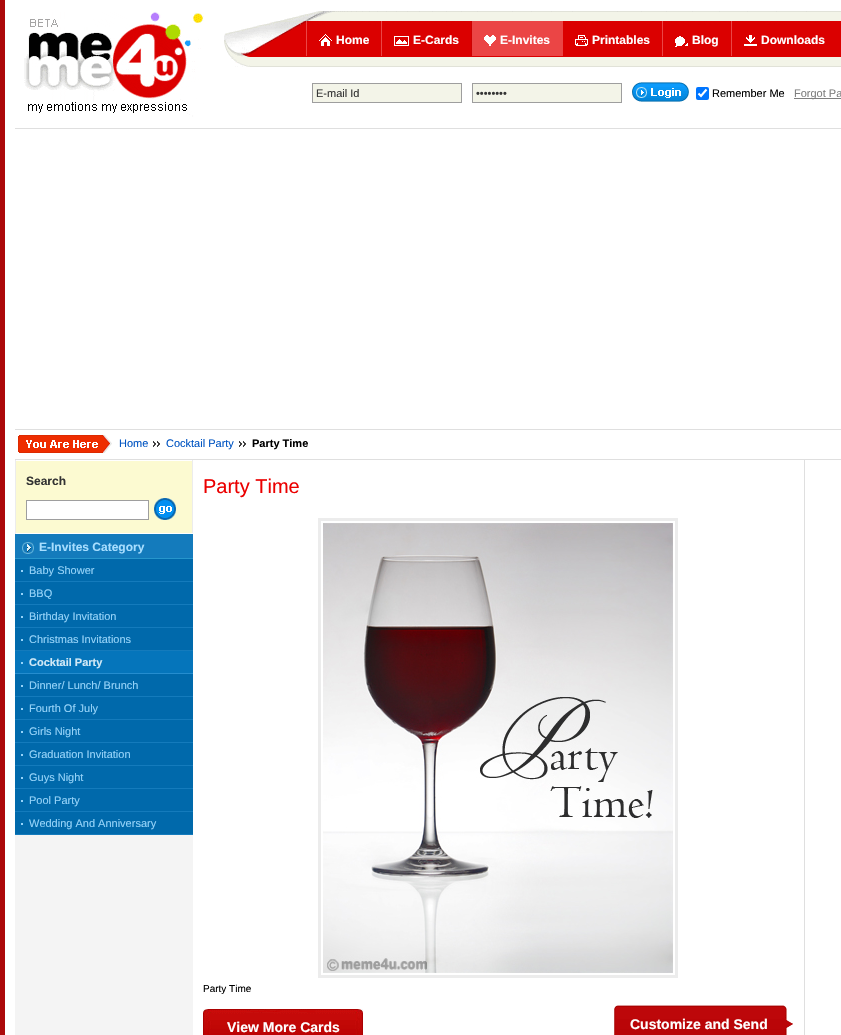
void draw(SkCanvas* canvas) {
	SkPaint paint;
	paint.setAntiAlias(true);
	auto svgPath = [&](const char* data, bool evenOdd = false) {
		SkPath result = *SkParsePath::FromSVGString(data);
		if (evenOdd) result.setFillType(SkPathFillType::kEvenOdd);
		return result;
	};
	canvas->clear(0xffffffff);
	paint.setColor(0xffac090a);
	canvas->drawRect(SkRect::MakeXYWH(0, 0, 5, 1035), paint);
	canvas->drawImageRect(SkImages::DeferredFromEncodedData(SkData::MakeFromFileName("img1.png")), SkRect::MakeXYWH(24, 12, 180, 105), SkSamplingOptions());
	canvas->drawImageRect(SkImages::DeferredFromEncodedData(SkData::MakeFromFileName("img2.png")), SkRect::MakeXYWH(224, 11, 617, 56), SkSamplingOptions());
	paint.setColor(0xffeb4545);
	canvas->drawRect(SkRect::MakeXYWH(306, 21, 1, 35), paint);
	canvas->drawImageRect(SkImages::DeferredFromEncodedData(SkData::MakeFromFileName("img3.png")), SkRect::MakeXYWH(319, 34, 13, 12), SkSamplingOptions());
	SkFont f1(fontMgr->matchFamilyStyle("Liberation Sans", SkFontStyle::Bold()), 12);
	f1.setSubpixel(true);
	paint.setColor(0xffffffff);
	canvas->drawString("Home", 336, 44, f1, paint);
	paint.setColor(0xffeb4545);
	canvas->drawRect(SkRect::MakeXYWH(381, 21, 1, 35), paint);
	canvas->drawImageRect(SkImages::DeferredFromEncodedData(SkData::MakeFromFileName("img4.png")), SkRect::MakeXYWH(394, 36, 15, 10), SkSamplingOptions());
	paint.setColor(0xffffffff);
	canvas->drawString("E-Cards", 413, 44, f1, paint);
	paint.setColor(0xffeb4545);
	canvas->drawRect(SkRect::MakeXYWH(472, 21, 91, 35), paint);
	paint.setColor(0xffce0000);
	canvas->drawRect(SkRect::MakeXYWH(471, 21, 1, 35), paint);
	canvas->drawImageRect(SkImages::DeferredFromEncodedData(SkData::MakeFromFileName("img5.png")), SkRect::MakeXYWH(484, 35, 12, 11), SkSamplingOptions());
	paint.setColor(0xffffffff);
	canvas->drawString("E-Invites", 500, 44, f1, paint);
	canvas->drawImageRect(SkImages::DeferredFromEncodedData(SkData::MakeFromFileName("img6.png")), SkRect::MakeXYWH(575, 35, 13, 11), SkSamplingOptions());
	canvas->drawString("Printables", 592, 44, f1, paint);
	paint.setColor(0xffeb4545);
	canvas->drawRect(SkRect::MakeXYWH(662, 21, 1, 35), paint);
	canvas->drawImageRect(SkImages::DeferredFromEncodedData(SkData::MakeFromFileName("img7.png")), SkRect::MakeXYWH(675, 36, 13, 11), SkSamplingOptions());
	paint.setColor(0xffffffff);
	canvas->drawString("Blog", 692, 44, f1, paint);
	paint.setColor(0xffeb4545);
	canvas->drawRect(SkRect::MakeXYWH(731, 21, 1, 35), paint);
	canvas->drawImageRect(SkImages::DeferredFromEncodedData(SkData::MakeFromFileName("img8.png")), SkRect::MakeXYWH(744, 35, 13, 11), SkSamplingOptions());
	paint.setColor(0xffffffff);
	canvas->drawString("Downloads", 761, 44, f1, paint);
	paint.setColor(0xfff3f4e8);
	canvas->drawRect(SkRect::MakeXYWH(312.5, 83.5, 149, 19), paint);
	paint.setStroke(true);
	paint.setStrokeWidth(1);
	paint.setColor(0xff9e9e9e);
	canvas->drawRect(SkRect::MakeXYWH(312.5, 83.5, 149, 19), paint);
	SkFont f2(fontMgr->matchFamilyStyle("Liberation Sans", SkFontStyle::Normal()), 11);
	f2.setSubpixel(true);
	paint.setStroke(false);
	paint.setColor(0xff333333);
	canvas->drawString("E-mail Id", 316, 97, f2, paint);
	paint.setColor(0xfff3f4e8);
	canvas->drawRect(SkRect::MakeXYWH(472.5, 83.5, 149, 19), paint);
	paint.setStroke(true);
	paint.setColor(0xff9e9e9e);
	canvas->drawRect(SkRect::MakeXYWH(472.5, 83.5, 149, 19), paint);
	paint.setStroke(false);
	paint.setColor(0xff333333);
	canvas->drawString("••••••••", 476, 97, f2, paint);
	canvas->drawImageRect(SkImages::DeferredFromEncodedData(SkData::MakeFromFileName("img9.png")), SkRect::MakeXYWH(632, 82, 57, 20), SkSamplingOptions());
	paint.setColor(0xff0075ff);
	canvas->drawRoundRect(SkRect::MakeXYWH(696, 87, 13, 13), 2, 2, paint);
	paint.setStroke(true);
	paint.setStrokeWidth(2.1);
	paint.setColor(0xffffffff);
	canvas->drawPath(svgPath("M698.5 93.5L701 96L706.5 89.5"), paint);
	paint.setStroke(false);
	paint.setColor(0xff000000);
	canvas->drawString("Remember Me", 712, 97, f2, paint);
	paint.setColor(0xff7f7f7f);
	canvas->drawRect(SkRect::MakeXYWH(794, 98, 47, 1), paint);
	canvas->drawString("Forgot Pa", 794, 97, f2, paint);
	paint.setColor(0xffdfdfdf);
	canvas->drawRect(SkRect::MakeXYWH(15, 128, 826, 1), paint);
	canvas->drawRect(SkRect::MakeXYWH(15, 429, 826, 1), paint);
	canvas->drawRect(SkRect::MakeXYWH(15, 459, 826, 1), paint);
	canvas->drawImageRect(SkImages::DeferredFromEncodedData(SkData::MakeFromFileName("img10.png")), SkRect::MakeXYWH(18, 435, 94, 18), SkSamplingOptions());
	paint.setColor(0xff0054c2);
	canvas->drawString("Home", 119, 447, f2, paint);
	canvas->drawImageRect(SkImages::DeferredFromEncodedData(SkData::MakeFromFileName("img11.png")), SkRect::MakeXYWH(153, 441, 7, 6), SkSamplingOptions());
	canvas->drawString("Cocktail Party", 166, 447, f2, paint);
	canvas->drawImageRect(SkImages::DeferredFromEncodedData(SkData::MakeFromFileName("img11.png")), SkRect::MakeXYWH(239, 441, 7, 6), SkSamplingOptions());
	SkFont f3(fontMgr->matchFamilyStyle("Liberation Sans", SkFontStyle::Bold()), 11);
	f3.setSubpixel(true);
	paint.setColor(0xff000000);
	canvas->drawString("Party Time", 252, 447, f3, paint);
	canvas->drawImageRect(SkImages::DeferredFromEncodedData(SkData::MakeFromFileName("img12.png")), SkRect::MakeXYWH(15, 460, 790, 575), SkSamplingOptions());
	paint.setColor(0xfffcfad1);
	canvas->drawRect(SkRect::MakeXYWH(16, 461, 176, 72), paint);
	paint.setColor(0xffffffff);
	canvas->drawRect(SkRect::MakeXYWH(15, 460, 178, 1), paint);
	paint.setColor(0xffececec);
	canvas->drawRect(SkRect::MakeXYWH(192, 460, 1, 74), paint);
	paint.setColor(0xffffffff);
	canvas->drawRect(SkRect::MakeXYWH(15, 533, 178, 1), paint);
	paint.setColor(0xffececec);
	canvas->drawRect(SkRect::MakeXYWH(15, 460, 1, 74), paint);
	paint.setColor(0xff333333);
	canvas->drawString("Search", 26, 485, f1, paint);
	paint.setColor(0xffffffff);
	canvas->drawRect(SkRect::MakeXYWH(26.5, 500.5, 122, 19), paint);
	paint.setStroke(true);
	paint.setStrokeWidth(1);
	paint.setColor(0xff9e9e9e);
	canvas->drawRect(SkRect::MakeXYWH(26.5, 500.5, 122, 19), paint);
	canvas->drawImageRect(SkImages::DeferredFromEncodedData(SkData::MakeFromFileName("img13.png")), SkRect::MakeXYWH(154, 498, 22, 22), SkSamplingOptions());
	paint.setStroke(false);
	paint.setColor(0xff147bbc);
	canvas->drawRect(SkRect::MakeXYWH(15, 534, 178, 24), paint);
	paint.setColor(0xff2796cc);
	canvas->drawRect(SkRect::MakeXYWH(15, 558, 178, 1), paint);
	canvas->drawImageRect(SkImages::DeferredFromEncodedData(SkData::MakeFromFileName("img14.png")), SkRect::MakeXYWH(22, 542, 12, 12), SkSamplingOptions());
	paint.setColor(0xffa7deff);
	canvas->drawString("E-Invites Category", 39, 551, f1, paint);
	paint.setColor(0xff147bbc);
	canvas->drawRect(SkRect::MakeXYWH(15, 581, 178, 1), paint);
	paint.setColor(0xff0069ab);
	canvas->drawRect(SkRect::MakeXYWH(15, 559, 178, 22), paint);
	paint.setColor(0xff95d3f9);
	canvas->drawRect(SkRect::MakeXYWH(21, 570, 2, 2), paint);
	canvas->drawString("Baby Shower", 29, 574, f2, paint);
	paint.setColor(0xff147bbc);
	canvas->drawRect(SkRect::MakeXYWH(15, 604, 178, 1), paint);
	paint.setColor(0xff0069ab);
	canvas->drawRect(SkRect::MakeXYWH(15, 582, 178, 22), paint);
	paint.setColor(0xff95d3f9);
	canvas->drawRect(SkRect::MakeXYWH(21, 593, 2, 2), paint);
	canvas->drawString("BBQ", 29, 597, f2, paint);
	paint.setColor(0xff147bbc);
	canvas->drawRect(SkRect::MakeXYWH(15, 627, 178, 1), paint);
	paint.setColor(0xff0069ab);
	canvas->drawRect(SkRect::MakeXYWH(15, 605, 178, 22), paint);
	paint.setColor(0xff95d3f9);
	canvas->drawRect(SkRect::MakeXYWH(21, 616, 2, 2), paint);
	canvas->drawString("Birthday Invitation", 29, 620, f2, paint);
	paint.setColor(0xff147bbc);
	canvas->drawRect(SkRect::MakeXYWH(15, 650, 178, 1), paint);
	paint.setColor(0xff0069ab);
	canvas->drawRect(SkRect::MakeXYWH(15, 628, 178, 22), paint);
	paint.setColor(0xff95d3f9);
	canvas->drawRect(SkRect::MakeXYWH(21, 639, 2, 2), paint);
	canvas->drawString("Christmas Invitations", 29, 643, f2, paint);
	paint.setColor(0xff258dcf);
	canvas->drawRect(SkRect::MakeXYWH(15, 673, 178, 1), paint);
	paint.setColor(0xff0575bb);
	canvas->drawRect(SkRect::MakeXYWH(15, 651, 178, 22), paint);
	paint.setColor(0xff95d3f9);
	canvas->drawRect(SkRect::MakeXYWH(21, 662, 2, 2), paint);
	paint.setColor(0xffd0e8f6);
	canvas->drawString("Cocktail Party", 29, 666, f3, paint);
	paint.setColor(0xff147bbc);
	canvas->drawRect(SkRect::MakeXYWH(15, 696, 178, 1), paint);
	paint.setColor(0xff0069ab);
	canvas->drawRect(SkRect::MakeXYWH(15, 674, 178, 22), paint);
	paint.setColor(0xff95d3f9);
	canvas->drawRect(SkRect::MakeXYWH(21, 685, 2, 2), paint);
	canvas->drawString("Dinner/ Lunch/ Brunch", 29, 689, f2, paint);
	paint.setColor(0xff147bbc);
	canvas->drawRect(SkRect::MakeXYWH(15, 719, 178, 1), paint);
	paint.setColor(0xff0069ab);
	canvas->drawRect(SkRect::MakeXYWH(15, 697, 178, 22), paint);
	paint.setColor(0xff95d3f9);
	canvas->drawRect(SkRect::MakeXYWH(21, 708, 2, 2), paint);
	canvas->drawString("Fourth Of July", 29, 712, f2, paint);
	paint.setColor(0xff147bbc);
	canvas->drawRect(SkRect::MakeXYWH(15, 742, 178, 1), paint);
	paint.setColor(0xff0069ab);
	canvas->drawRect(SkRect::MakeXYWH(15, 720, 178, 22), paint);
	paint.setColor(0xff95d3f9);
	canvas->drawRect(SkRect::MakeXYWH(21, 731, 2, 2), paint);
	canvas->drawString("Girls Night", 29, 735, f2, paint);
	paint.setColor(0xff147bbc);
	canvas->drawRect(SkRect::MakeXYWH(15, 765, 178, 1), paint);
	paint.setColor(0xff0069ab);
	canvas->drawRect(SkRect::MakeXYWH(15, 743, 178, 22), paint);
	paint.setColor(0xff95d3f9);
	canvas->drawRect(SkRect::MakeXYWH(21, 754, 2, 2), paint);
	canvas->drawString("Graduation Invitation", 29, 758, f2, paint);
	paint.setColor(0xff147bbc);
	canvas->drawRect(SkRect::MakeXYWH(15, 788, 178, 1), paint);
	paint.setColor(0xff0069ab);
	canvas->drawRect(SkRect::MakeXYWH(15, 766, 178, 22), paint);
	paint.setColor(0xff95d3f9);
	canvas->drawRect(SkRect::MakeXYWH(21, 777, 2, 2), paint);
	canvas->drawString("Guys Night", 29, 781, f2, paint);
	paint.setColor(0xff147bbc);
	canvas->drawRect(SkRect::MakeXYWH(15, 811, 178, 1), paint);
	paint.setColor(0xff0069ab);
	canvas->drawRect(SkRect::MakeXYWH(15, 789, 178, 22), paint);
	paint.setColor(0xff95d3f9);
	canvas->drawRect(SkRect::MakeXYWH(21, 800, 2, 2), paint);
	canvas->drawString("Pool Party", 29, 804, f2, paint);
	paint.setColor(0xff147bbc);
	canvas->drawRect(SkRect::MakeXYWH(15, 834, 178, 1), paint);
	paint.setColor(0xff0069ab);
	canvas->drawRect(SkRect::MakeXYWH(15, 812, 178, 22), paint);
	paint.setColor(0xff95d3f9);
	canvas->drawRect(SkRect::MakeXYWH(21, 823, 2, 2), paint);
	canvas->drawString("Wedding And Anniversary", 29, 827, f2, paint);
	SkFont f4(fontMgr->matchFamilyStyle("Liberation Sans", SkFontStyle::Normal()), 20);
	f4.setSubpixel(true);
	paint.setColor(0xffeb0000);
	canvas->drawString("Party Time", 203, 493, f4, paint);
	paint.setStroke(true);
	paint.setStrokeWidth(3);
	paint.setColor(0xffececec);
	canvas->drawRect(SkRect::MakeXYWH(319.5, 519.5, 357, 457), paint);
	canvas->drawImageRect(SkImages::DeferredFromEncodedData(SkData::MakeFromFileName("img15.png")), SkRect::MakeXYWH(323, 523, 350, 450), SkSamplingOptions());
	SkFont f5(fontMgr->matchFamilyStyle("Liberation Sans", SkFontStyle::Normal()), 10);
	f5.setSubpixel(true);
	paint.setStroke(false);
	paint.setColor(0xff000000);
	canvas->drawString("Party Time", 203, 992, f5, paint);
	canvas->drawImageRect(SkImages::DeferredFromEncodedData(SkData::MakeFromFileName("img16.png")), SkRect::MakeXYWH(203, 1009, 160, 26), SkSamplingOptions());
	SkFont f6(fontMgr->matchFamilyStyle("Liberation Sans", SkFontStyle::Bold()), 14);
	f6.setSubpixel(true);
	paint.setColor(0xffffffff);
	canvas->drawString("View More Cards", 227, 1032, f6, paint);
	canvas->drawImageRect(SkImages::DeferredFromEncodedData(SkData::MakeFromFileName("img17.png")), SkRect::MakeXYWH(614, 1005, 179, 30), SkSamplingOptions());
	canvas->drawString("Customize and Send", 630, 1029, f6, paint);
}
